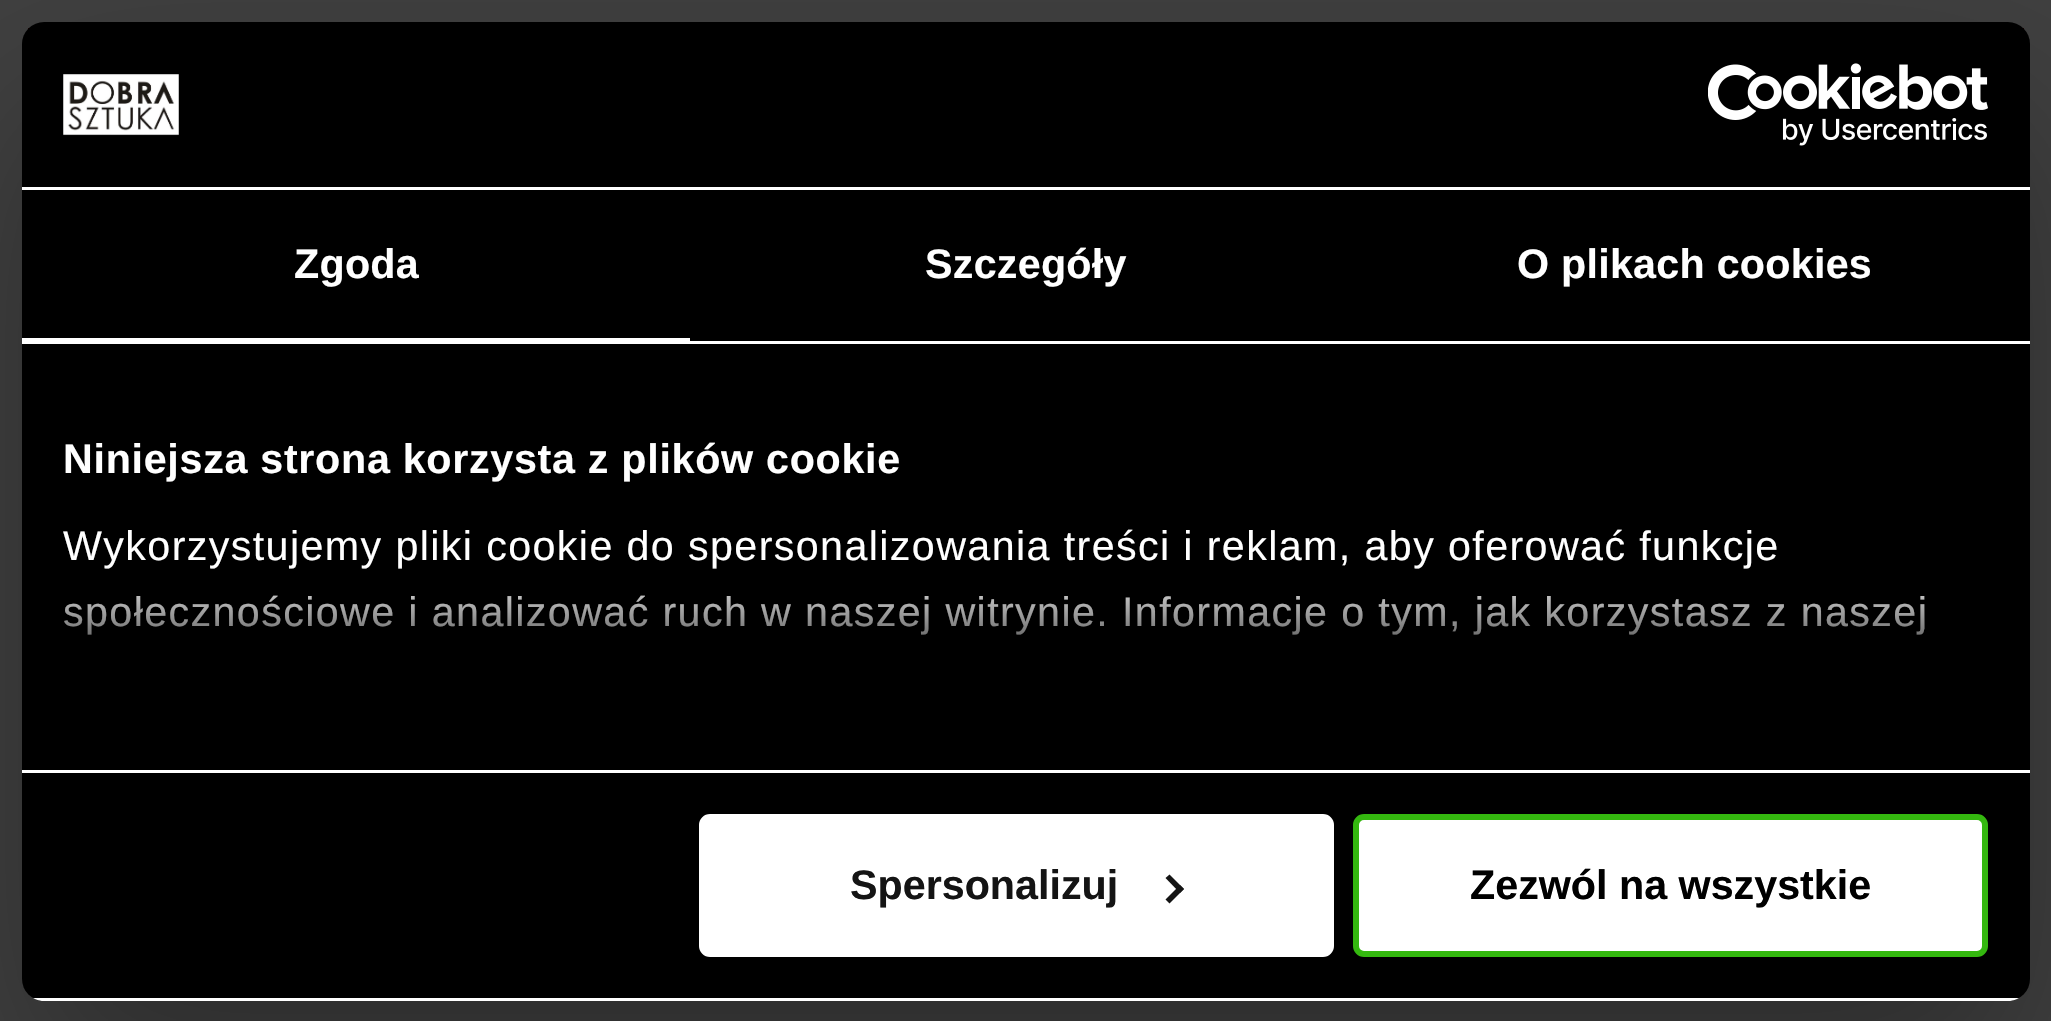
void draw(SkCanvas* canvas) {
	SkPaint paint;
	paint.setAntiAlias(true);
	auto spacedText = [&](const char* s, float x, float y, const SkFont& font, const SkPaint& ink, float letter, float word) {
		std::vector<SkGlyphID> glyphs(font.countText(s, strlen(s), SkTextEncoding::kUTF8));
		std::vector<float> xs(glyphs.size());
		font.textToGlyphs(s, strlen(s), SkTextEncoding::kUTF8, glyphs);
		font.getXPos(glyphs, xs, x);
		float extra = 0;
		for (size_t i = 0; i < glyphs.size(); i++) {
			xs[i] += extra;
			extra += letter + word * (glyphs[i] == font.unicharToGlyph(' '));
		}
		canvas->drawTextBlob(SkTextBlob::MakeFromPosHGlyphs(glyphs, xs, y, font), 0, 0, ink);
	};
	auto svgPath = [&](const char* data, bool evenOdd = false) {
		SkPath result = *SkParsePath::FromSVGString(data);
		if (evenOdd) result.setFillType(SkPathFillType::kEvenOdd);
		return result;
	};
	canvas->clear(0xff404040);
	paint.setColor(0xff2a0000);
	canvas->drawRect(SkRect::MakeXYWH(28, 28, 1996, 1), paint);
	paint.setColor(0x4d000000);
	paint.setMaskFilter(SkMaskFilter::MakeBlur(kNormal_SkBlurStyle, 93.5));
	canvas->drawRoundRect(SkRect::MakeXYWH(22, 110, 2008, 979), 22, 22, paint);
	paint.setMaskFilter(nullptr);
	paint.setColor(0xff000000);
	canvas->drawRoundRect(SkRect::MakeXYWH(22, 22, 2008, 979), 22, 22, paint);
	paint.setColor(0xffffffff);
	canvas->drawRect(SkRect::MakeXYWH(22, 187, 2008, 3), paint);
	canvas->drawImageRect(SkImages::DeferredFromEncodedData(SkData::MakeFromFileName("img1.png")), SkRect::MakeXYWH(63, 74, 116, 62), SkSamplingOptions());
	canvas->drawImageRect(SkImages::DeferredFromEncodedData(SkData::MakeFromFileName("img2.png")), SkRect::MakeXYWH(1708, 63, 280, 83), SkSamplingOptions());
	canvas->drawRect(SkRect::MakeXYWH(22, 341, 2008, 3), paint);
	canvas->drawRect(SkRect::MakeXYWH(22, 338, 668, 3), paint);
	SkFont f1(fontMgr->matchFamilyStyle("Liberation Sans", SkFontStyle::Bold()), 41.25);
	f1.setSubpixel(true);
	spacedText("Zgoda", 294, 278, f1, paint, 0.25, 0);
	spacedText("Szczegóły", 925, 278, f1, paint, 0.25, 0);
	spacedText("O plikach cookies", 1517, 278, f1, paint, 0.25, 0);
	canvas->drawRect(SkRect::MakeXYWH(22, 770, 2008, 3), paint);
	spacedText("Niniejsza strona korzysta z plików cookie", 63, 473, f1, paint, 0.7, 0);
	SkFont f2(fontMgr->matchFamilyStyle("Liberation Sans", SkFontStyle::Normal()), 41.25);
	f2.setSubpixel(true);
	spacedText("Wykorzystujemy pliki cookie do spersonalizowania treści i reklam, aby oferować funkcje", 63, 560, f2, paint, 1.38, 0);
	spacedText("społecznościowe i analizować ruch w naszej witrynie. Informacje o tym, jak korzystasz z naszej", 63, 626, f2, paint, 1.38, 0);
	{
		const SkColor colors[] = {0xff000000, 0xcc000000, 0x00000000};
		const float stops[] = {0, 0.5, 1};
		const SkPoint ends[] = {{1008, 770}, {1008, 564}};
		paint.setShader(SkGradientShader::MakeLinear(ends, colors, stops, 3, SkTileMode::kClamp));
		paint.setAlpha(255);
	}
	canvas->drawRect(SkRect::MakeXYWH(64, 567, 1860, 68), paint);
	canvas->save();
	canvas->clipPath(svgPath("M44 22H2008C2020 22 2030 32 2030 44V979C2030 991 2020 1001 2008 1001H44C32 1001 22 991 22 979V44C22 32 32 22 44 22Z"), true);
	paint.setShader(nullptr);
	paint.setColor(0xffffffff);
	canvas->drawRect(SkRect::MakeXYWH(33, 998, 1986, 3), paint);
	canvas->restore();
	canvas->drawRoundRect(SkRect::MakeXYWH(702, 817, 629, 137), 8, 8, paint);
	paint.setStroke(true);
	paint.setStrokeWidth(6);
	canvas->drawRoundRect(SkRect::MakeXYWH(702, 817, 629, 137), 8, 8, paint);
	paint.setStroke(false);
	paint.setColor(0xff141414);
	canvas->drawString("Spersonalizuj", 850, 899, f1, paint);
	canvas->drawPath(svgPath("M1169.5 874.5L1184 889L1180 893L1165.5 878Z"), paint);
	canvas->drawPath(svgPath("M1180 885L1184 889L1169.5 903.5L1165.5 899.5Z"), paint);
	paint.setColor(0xffffffff);
	canvas->drawRoundRect(SkRect::MakeXYWH(1356, 817, 629, 137), 8, 8, paint);
	paint.setStroke(true);
	paint.setColor(0xff34b80f);
	canvas->drawRoundRect(SkRect::MakeXYWH(1356, 817, 629, 137), 8, 8, paint);
	paint.setStroke(false);
	paint.setColor(0xff000000);
	canvas->drawString("Zezwól na wszystkie", 1470, 899, f1, paint);
}
